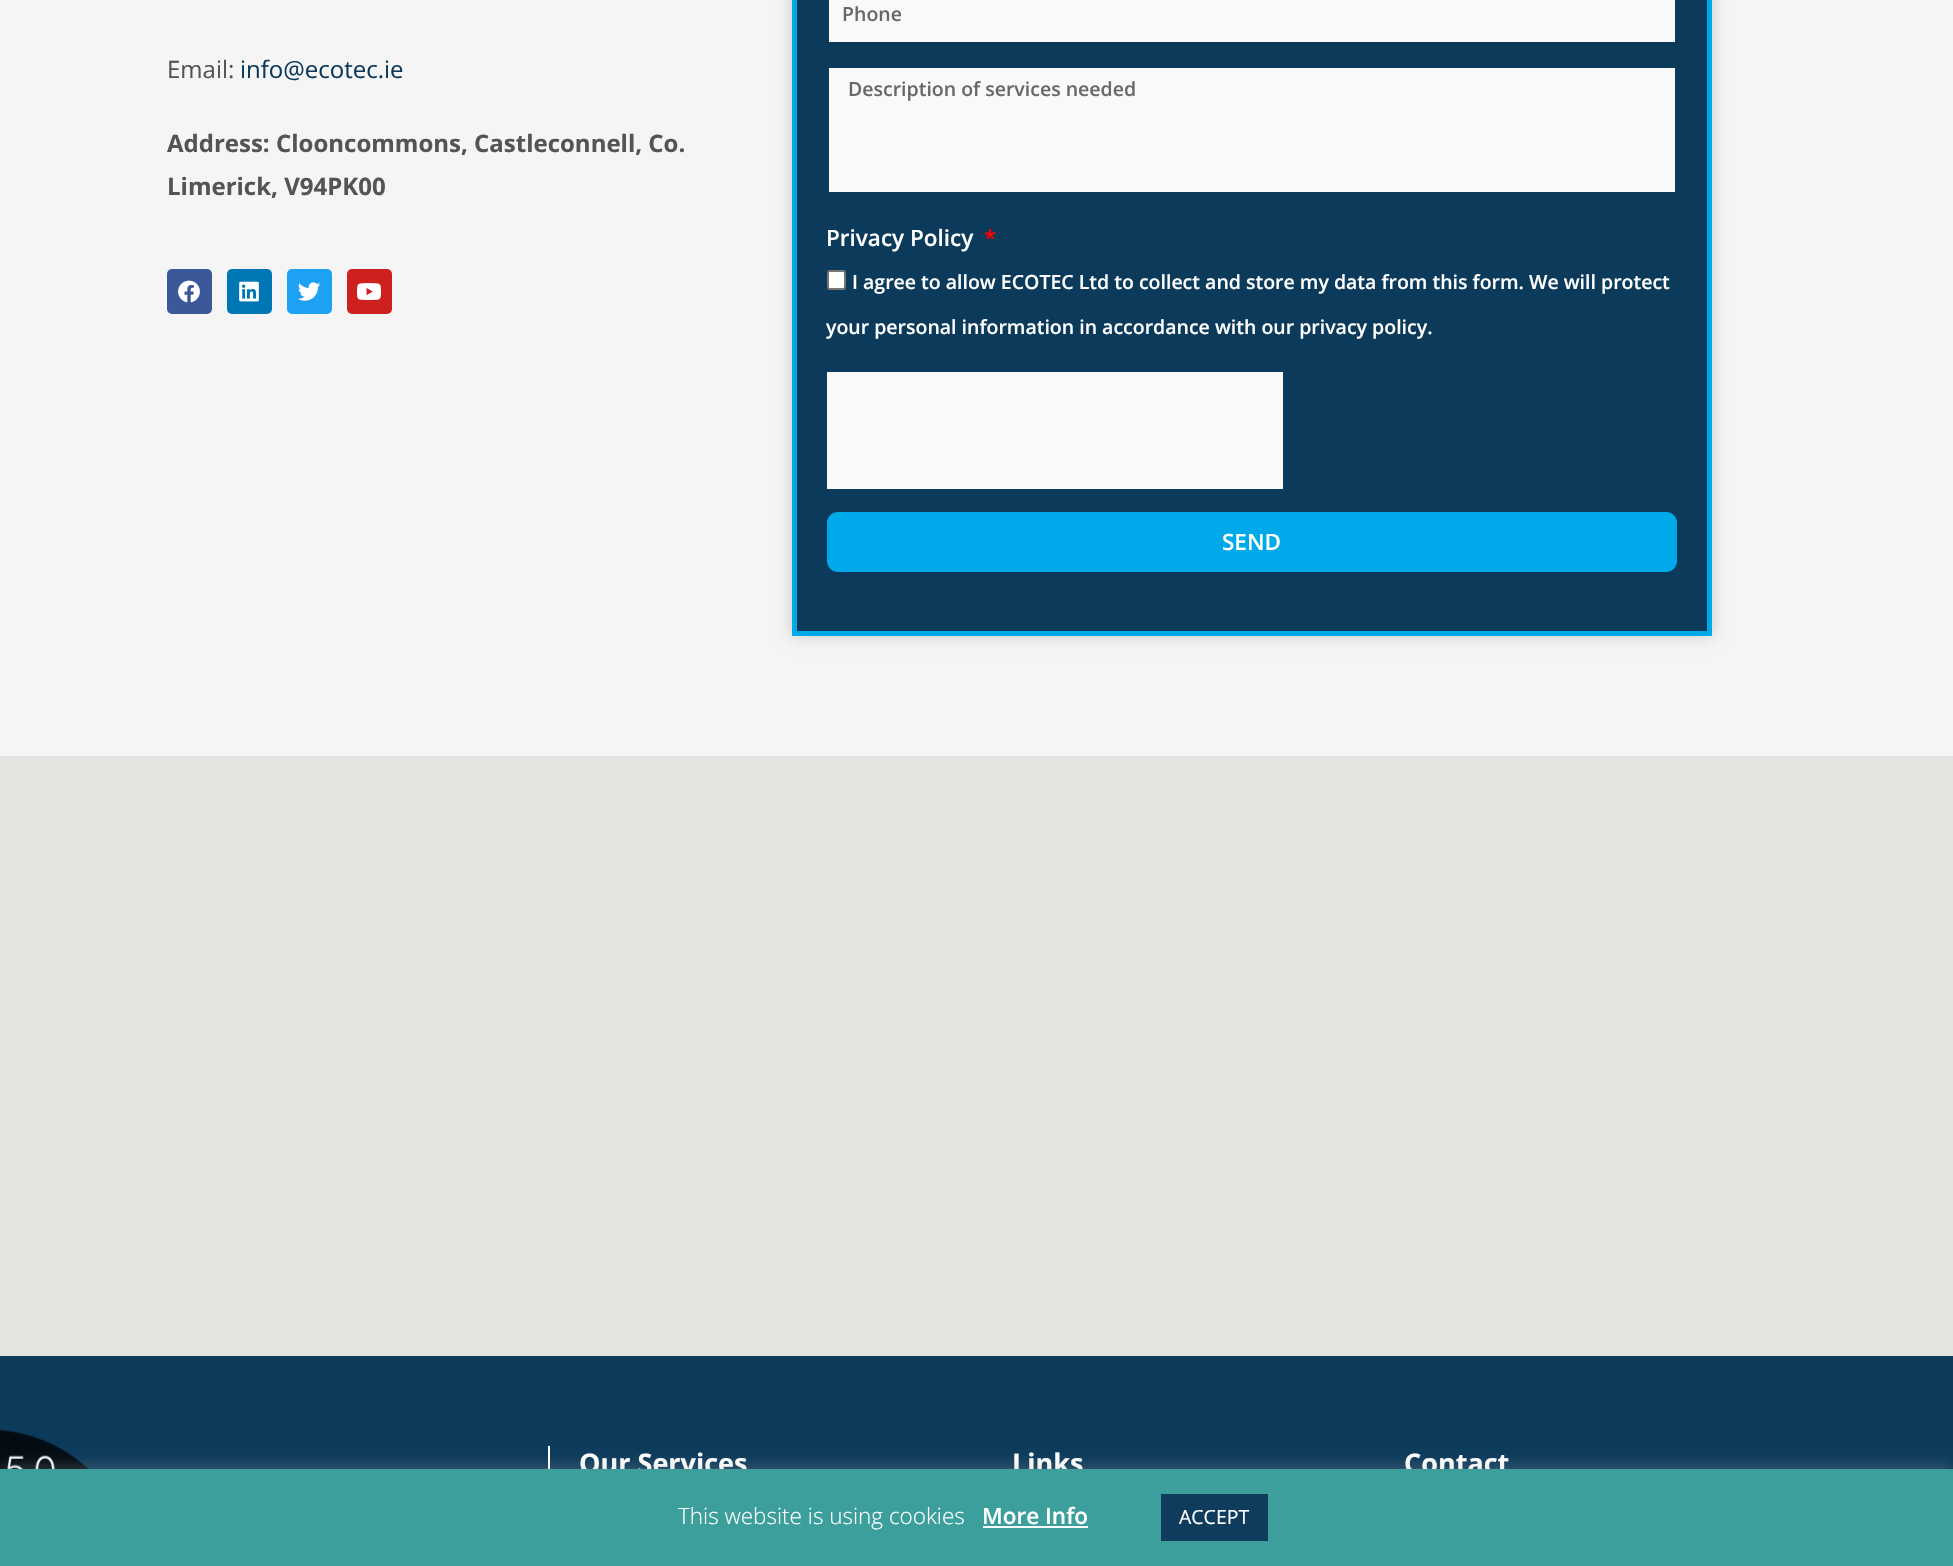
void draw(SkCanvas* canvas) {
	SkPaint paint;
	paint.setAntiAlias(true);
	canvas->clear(0xfff5f5f5);
	SkFont f1(fontMgr->matchFamilyStyle("Open Sans", SkFontStyle::Normal()), 24);
	f1.setSubpixel(true);
	paint.setColor(0xff545454);
	canvas->drawString("Email:", 167, 78, f1, paint);
	paint.setColor(0xff0c3a5b);
	canvas->drawString("info@ecotec.ie", 240, 78, f1, paint);
	SkFont f2(fontMgr->matchFamilyStyle("Open Sans", SkFontStyle::Bold()), 24);
	f2.setSubpixel(true);
	paint.setColor(0xff545454);
	canvas->drawString("Address: Clooncommons, Castleconnell, Co.", 167, 152, f2, paint);
	canvas->drawString("Limerick, V94PK00", 167, 195, f2, paint);
	paint.setColor(0xff3b5998);
	canvas->drawRoundRect(SkRect::MakeXYWH(167, 269, 45, 45), 5, 5, paint);
	canvas->drawImageRect(SkImages::DeferredFromEncodedData(SkData::MakeFromFileName("img1.png")), SkRect::MakeXYWH(178, 280, 22, 23), SkSamplingOptions());
	paint.setColor(0xff0077b5);
	canvas->drawRoundRect(SkRect::MakeXYWH(227, 269, 45, 45), 5, 5, paint);
	canvas->drawImageRect(SkImages::DeferredFromEncodedData(SkData::MakeFromFileName("img2.png")), SkRect::MakeXYWH(239, 281, 20, 21), SkSamplingOptions());
	paint.setColor(0xff1da1f2);
	canvas->drawRoundRect(SkRect::MakeXYWH(287, 269, 45, 45), 5, 5, paint);
	canvas->drawImageRect(SkImages::DeferredFromEncodedData(SkData::MakeFromFileName("img3.png")), SkRect::MakeXYWH(298, 282, 23, 19), SkSamplingOptions());
	paint.setColor(0xffcd201f);
	canvas->drawRoundRect(SkRect::MakeXYWH(347, 269, 45, 45), 5, 5, paint);
	canvas->drawImageRect(SkImages::DeferredFromEncodedData(SkData::MakeFromFileName("img4.png")), SkRect::MakeXYWH(357, 283, 24, 17), SkSamplingOptions());
	paint.setColor(0x2e000000);
	paint.setMaskFilter(SkMaskFilter::MakeBlur(kNormal_SkBlurStyle, 7.5));
	canvas->drawRect(SkRect::MakeXYWH(792, -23, 920, 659), paint);
	paint.setMaskFilter(nullptr);
	paint.setColor(0xff0c3a5b);
	canvas->drawRect(SkRect::MakeXYWH(794.5, -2.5, 915, 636), paint);
	paint.setStroke(true);
	paint.setStrokeWidth(5);
	paint.setColor(0xff00aaea);
	canvas->drawRect(SkRect::MakeXYWH(794.5, -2.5, 915, 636), paint);
	paint.setStroke(false);
	paint.setColor(0xfff9f9f9);
	canvas->drawRect(SkRect::MakeXYWH(829, 0, 846, 42), paint);
	SkFont f3(fontMgr->matchFamilyStyle("Open Sans", SkFontStyle(600, SkFontStyle::kNormal_Width, SkFontStyle::kUpright_Slant)), 19.5);
	f3.setSubpixel(true);
	paint.setColor(0xff686868);
	canvas->drawString("Phone", 842, 21, f3, paint);
	paint.setColor(0xfff9f9f9);
	canvas->drawRect(SkRect::MakeXYWH(829, 68, 846, 124), paint);
	paint.setColor(0xff686868);
	canvas->drawString("Description of services needed", 848, 96, f3, paint);
	SkFont f4(fontMgr->matchFamilyStyle("Open Sans", SkFontStyle(600, SkFontStyle::kNormal_Width, SkFontStyle::kUpright_Slant)), 22.5);
	f4.setSubpixel(true);
	paint.setColor(0xffffffff);
	canvas->drawString("Privacy Policy", 826, 246, f4, paint);
	paint.setColor(0xffff0000);
	canvas->drawString("*", 984, 246, f4, paint);
	paint.setColor(0xffffffff);
	canvas->drawRoundRect(SkRect::MakeXYWH(828, 271, 17, 18), 2, 2, paint);
	paint.setStroke(true);
	paint.setStrokeWidth(2);
	paint.setColor(0xff767676);
	canvas->drawRoundRect(SkRect::MakeXYWH(828, 271, 17, 18), 2, 2, paint);
	paint.setStroke(false);
	paint.setColor(0xffffffff);
	canvas->drawString("I agree to allow ECOTEC Ltd to collect and store my data from this form. We will protect", 852, 289, f3, paint);
	canvas->drawString("your personal information in accordance with our privacy policy.", 826, 334, f3, paint);
	paint.setColor(0xfff9f9f9);
	canvas->drawRect(SkRect::MakeXYWH(827, 372, 456, 117), paint);
	paint.setColor(0xff00aaea);
	canvas->drawRoundRect(SkRect::MakeXYWH(827, 512, 850, 60), 11, 11, paint);
	paint.setColor(0xffffffff);
	canvas->drawString("SEND", 1222, 550, f4, paint);
	paint.setColor(0xffe5e3df);
	canvas->drawRect(SkRect::MakeXYWH(0, 756, 1953, 600), paint);
	paint.setColor(0xff0c3a5b);
	canvas->drawRect(SkRect::MakeXYWH(0, 1356, 1953, 113), paint);
	canvas->drawImageRect(SkImages::DeferredFromEncodedData(SkData::MakeFromFileName("img5.png")), SkRect::MakeXYWH(0, 1429, 89, 40), SkSamplingOptions());
	paint.setColor(0xffffffff);
	canvas->drawRect(SkRect::MakeXYWH(548, 1446, 2, 23), paint);
	SkFont f5(fontMgr->matchFamilyStyle("Open Sans", SkFontStyle::Bold()), 27);
	f5.setSubpixel(true);
	canvas->drawString("Our Services", 579, 1473, f5, paint);
	canvas->drawString("Links", 1012, 1473, f5, paint);
	canvas->drawString("Contact", 1404, 1473, f5, paint);
	paint.setColor(0x4dacabab);
	paint.setMaskFilter(SkMaskFilter::MakeBlur(kNormal_SkBlurStyle, 7.5));
	canvas->drawRect(SkRect::MakeXYWH(0, 1467, 1953, 98), paint);
	paint.setMaskFilter(nullptr);
	paint.setColor(0xff3c9f9c);
	canvas->drawRect(SkRect::MakeXYWH(0, 1469, 1953, 97), paint);
	SkFont f6(fontMgr->matchFamilyStyle("Open Sans", SkFontStyle(300, SkFontStyle::kNormal_Width, SkFontStyle::kUpright_Slant)), 22.5);
	f6.setSubpixel(true);
	paint.setColor(0xffffffff);
	canvas->drawString("This website is using cookies", 678, 1524, f6, paint);
	canvas->drawString("More Info", 982, 1524, f4, paint);
	canvas->drawRect(SkRect::MakeXYWH(983, 1526, 105, 2), paint);
	paint.setColor(0xff0f3b5d);
	canvas->drawRect(SkRect::MakeXYWH(1161, 1494, 107, 47), paint);
	SkFont f7(fontMgr->matchFamilyStyle("Open Sans", SkFontStyle::Normal()), 19.5);
	f7.setSubpixel(true);
	paint.setColor(0xffffffff);
	canvas->drawString("ACCEPT", 1179, 1524, f7, paint);
}
